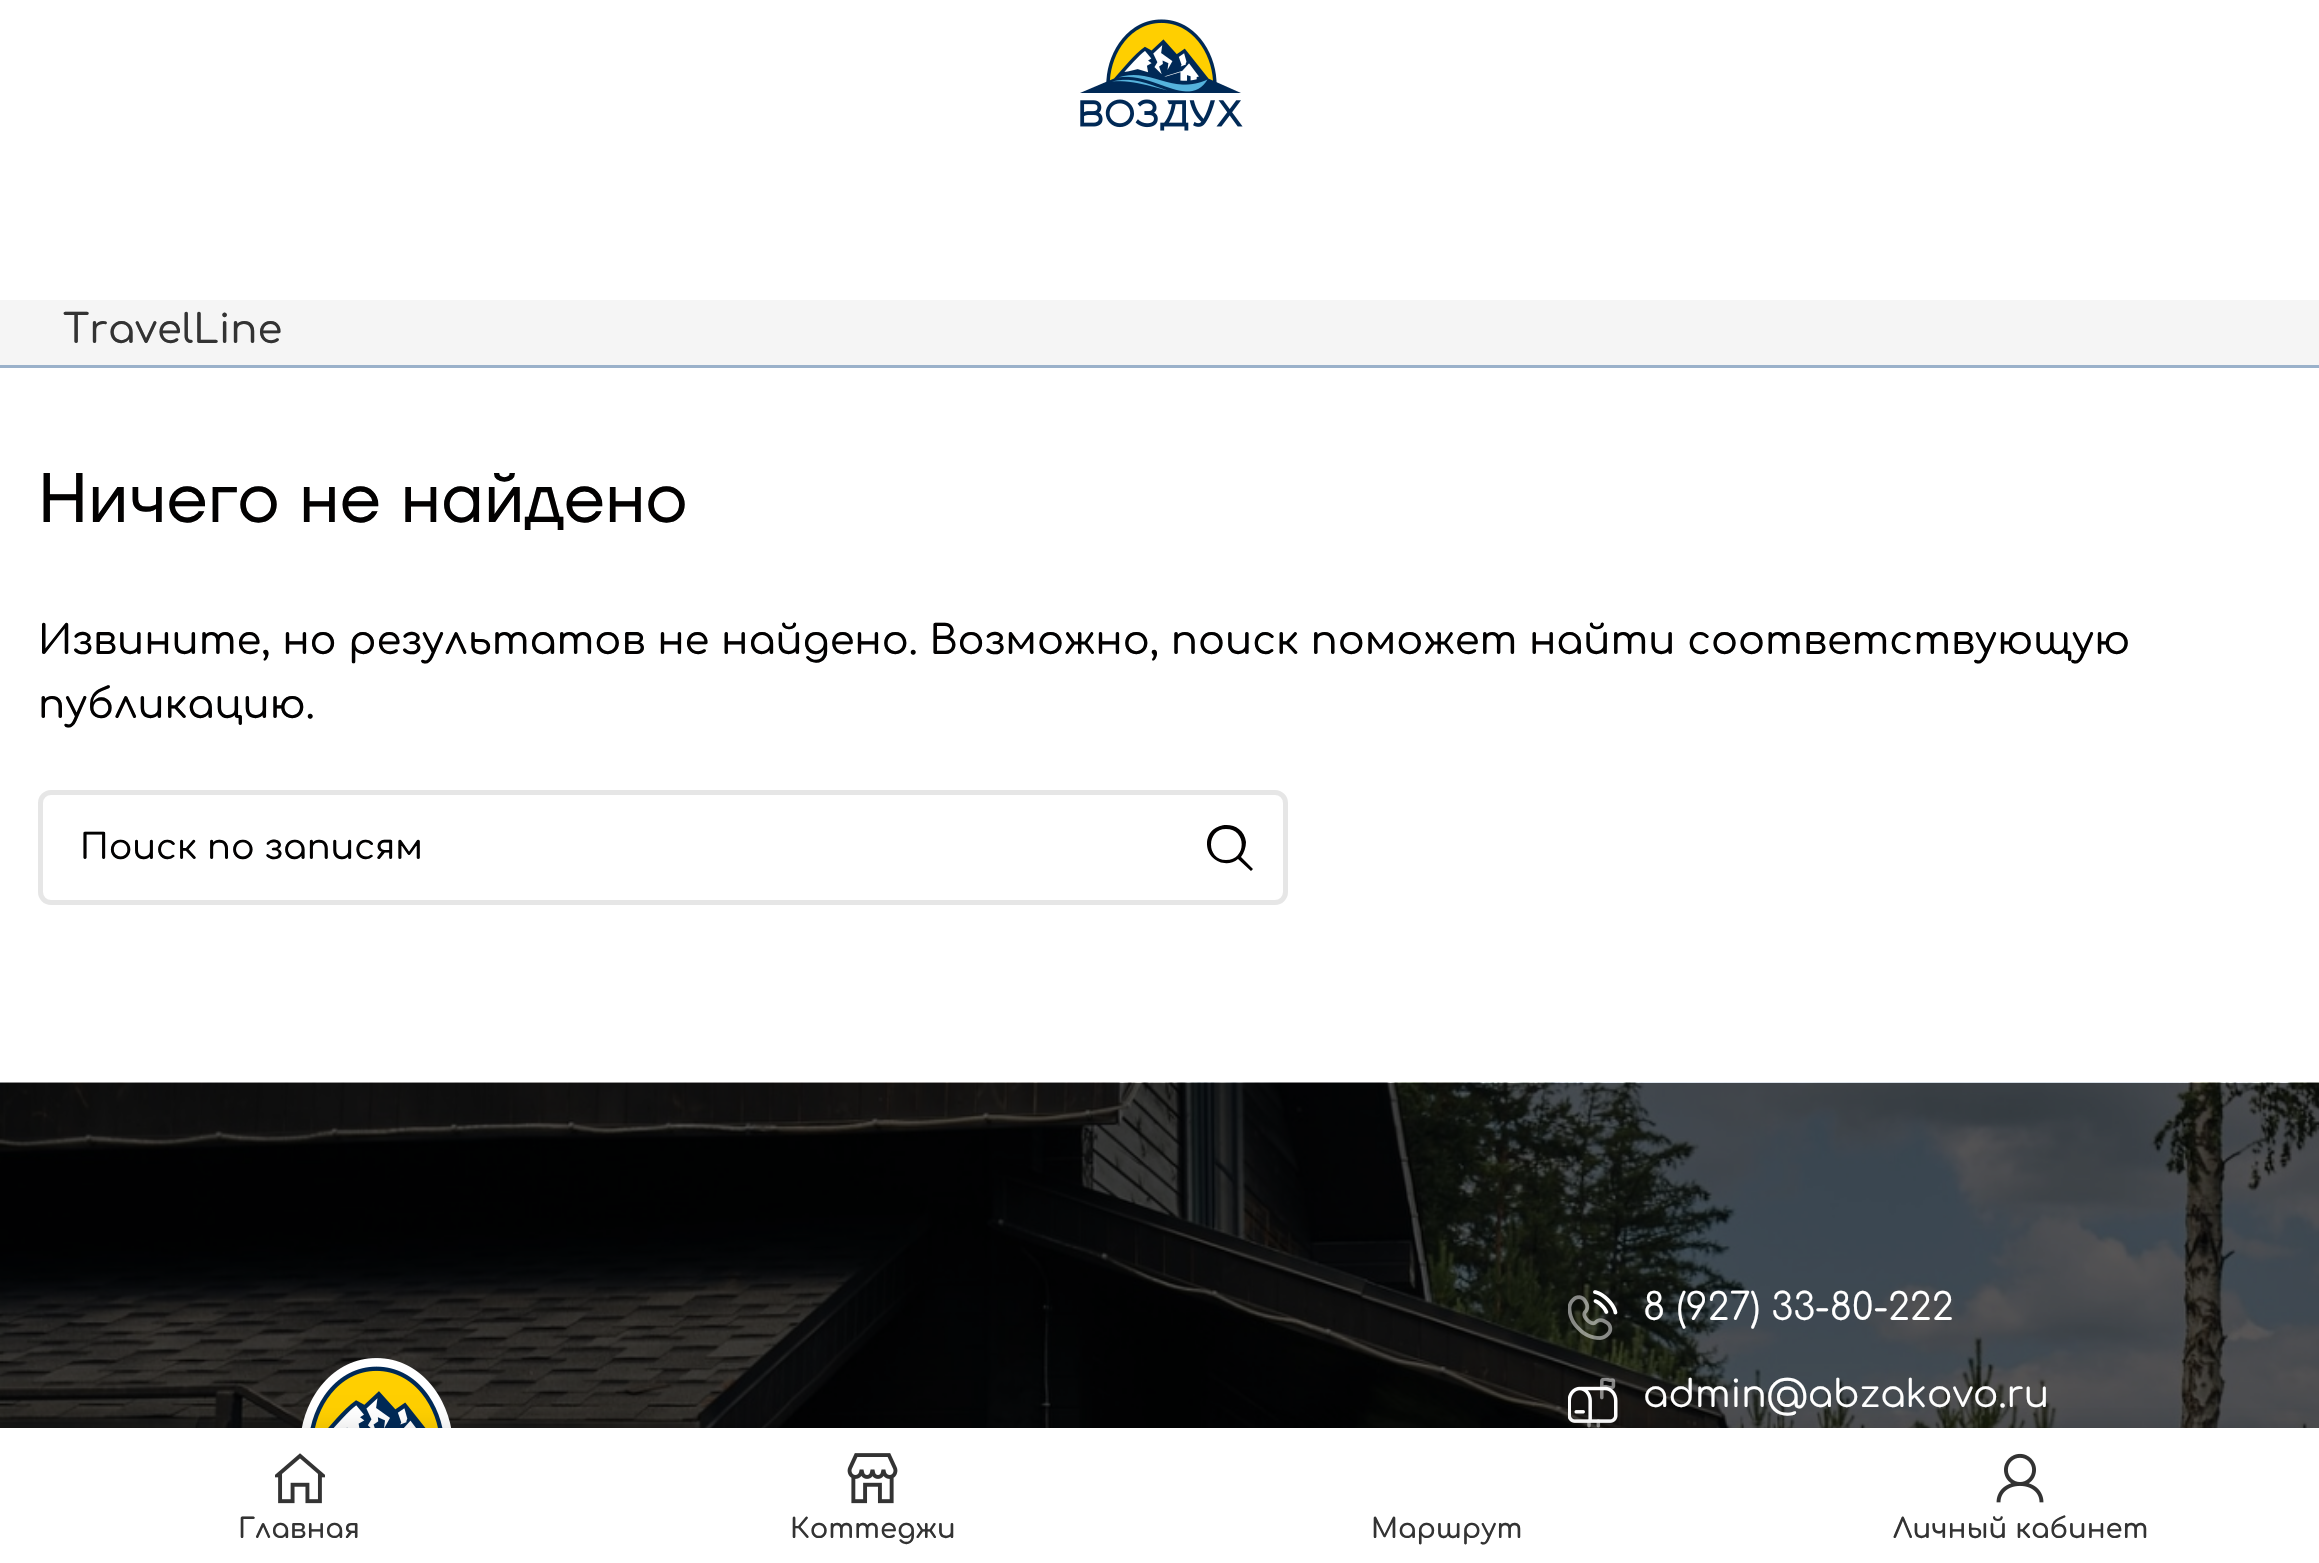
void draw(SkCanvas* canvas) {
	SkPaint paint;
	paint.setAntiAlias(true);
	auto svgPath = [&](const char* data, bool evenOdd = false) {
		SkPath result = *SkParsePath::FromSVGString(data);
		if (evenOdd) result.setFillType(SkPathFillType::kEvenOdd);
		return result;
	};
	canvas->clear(0xffffffff);
	canvas->drawImageRect(SkImages::DeferredFromEncodedData(SkData::MakeFromFileName("img1.png")), SkRect::MakeXYWH(1080, 19, 163, 112), SkSamplingOptions());
	paint.setColor(0xfff5f5f5);
	canvas->drawRect(SkRect::MakeXYWH(0, 300, 2319, 65), paint);
	paint.setColor(0xff9ab1ca);
	canvas->drawRect(SkRect::MakeXYWH(0, 365, 2319, 3), paint);
	SkFont f1(fontMgr->matchFamilyStyle("Comfortaa", SkFontStyle(500, SkFontStyle::kNormal_Width, SkFontStyle::kUpright_Slant)), 40);
	f1.setSubpixel(true);
	paint.setColor(0xff333333);
	canvas->drawString("TravelLine", 63, 343, f1, paint);
	SkFont f2(fontMgr->matchFamilyStyle("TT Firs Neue", SkFontStyle::Normal()), 70);
	f2.setSubpixel(true);
	paint.setColor(0xff020101);
	canvas->drawString("Ничего не найдено", 38, 522, f2, paint);
	canvas->drawString("Извините, но результатов не найдено. Возможно, поиск поможет найти соответствующую", 38, 654, f1, paint);
	canvas->drawString("публикацию.", 38, 718, f1, paint);
	paint.setStroke(true);
	paint.setStrokeWidth(5);
	paint.setColor(0xffe6e6e6);
	canvas->drawRoundRect(SkRect::MakeXYWH(40.5, 792.5, 1245, 110), 10.5, 10.5, paint);
	SkFont f3(fontMgr->matchFamilyStyle("Comfortaa", SkFontStyle(500, SkFontStyle::kNormal_Width, SkFontStyle::kUpright_Slant)), 35);
	f3.setSubpixel(true);
	paint.setStroke(false);
	paint.setColor(0xff020101);
	canvas->drawString("Поиск по записям", 80, 859, f3, paint);
	paint.setColor(0xff020000);
	canvas->drawPath(svgPath("M1207 844C1207 860 1226 869 1238 859L1251 871L1253 869L1241 857C1244 853 1246 847 1246 842C1243 818 1207 820 1207 844ZM1226 860C1206 860 1206 829 1226 829C1247 829 1247 860 1226 860Z"), paint);
	canvas->drawImageRect(SkImages::DeferredFromEncodedData(SkData::MakeFromFileName("img2.png")), SkRect::MakeXYWH(0, 1082, 2319, 346), SkSamplingOptions());
	canvas->drawImageRect(SkImages::DeferredFromEncodedData(SkData::MakeFromFileName("img3.png")), SkRect::MakeXYWH(301, 1358, 150, 70), SkSamplingOptions());
	canvas->drawImageRect(SkImages::DeferredFromEncodedData(SkData::MakeFromFileName("img4.png")), SkRect::MakeXYWH(1568, 1290, 50, 50), SkSamplingOptions());
	SkFont f4(fontMgr->matchFamilyStyle("Comfortaa", SkFontStyle::Normal()), 37.5);
	f4.setSubpixel(true);
	paint.setColor(0xffffffff);
	canvas->drawString("8 (927) 33-80-222", 1643, 1320, f4, paint);
	canvas->drawImageRect(SkImages::DeferredFromEncodedData(SkData::MakeFromFileName("img5.png")), SkRect::MakeXYWH(1568, 1378, 50, 50), SkSamplingOptions());
	canvas->drawString("admin@abzakovo.ru", 1643, 1407, f4, paint);
	paint.setColor(0x1f000000);
	paint.setMaskFilter(SkMaskFilter::MakeBlur(kNormal_SkBlurStyle, 11));
	canvas->drawRect(SkRect::MakeXYWH(0, 1428, 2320, 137), paint);
	paint.setMaskFilter(nullptr);
	paint.setColor(0xffffffff);
	canvas->drawRect(SkRect::MakeXYWH(0, 1428, 2319, 135), paint);
	canvas->drawImageRect(SkImages::DeferredFromEncodedData(SkData::MakeFromFileName("img6.png")), SkRect::MakeXYWH(275, 1453, 50, 51), SkSamplingOptions());
	SkFont f5(fontMgr->matchFamilyStyle("Comfortaa", SkFontStyle(600, SkFontStyle::kNormal_Width, SkFontStyle::kUpright_Slant)), 27.5);
	f5.setSubpixel(true);
	paint.setColor(0xff333333);
	canvas->drawString("Главная", 238, 1538, f5, paint);
	canvas->drawImageRect(SkImages::DeferredFromEncodedData(SkData::MakeFromFileName("img7.png")), SkRect::MakeXYWH(847, 1453, 51, 51), SkSamplingOptions());
	canvas->drawString("Коттеджи", 790, 1538, f5, paint);
	canvas->drawString("Маршрут", 1371, 1538, f5, paint);
	canvas->drawImageRect(SkImages::DeferredFromEncodedData(SkData::MakeFromFileName("img8.png")), SkRect::MakeXYWH(1996, 1453, 48, 50), SkSamplingOptions());
	canvas->drawString("Личный кабинет", 1893, 1538, f5, paint);
}
